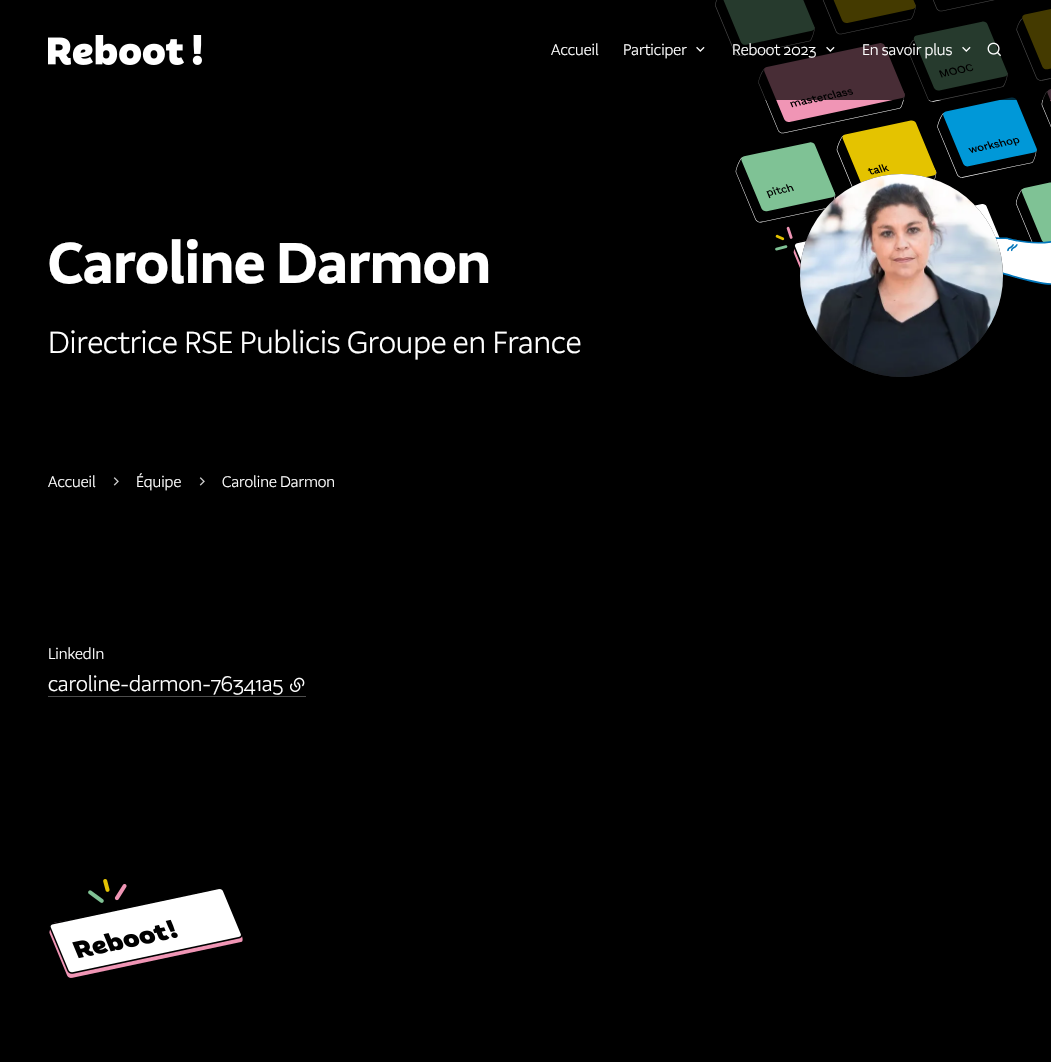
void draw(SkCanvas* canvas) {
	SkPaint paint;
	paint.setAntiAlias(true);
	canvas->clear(0xff000000);
	canvas->drawImageRect(SkImages::DeferredFromEncodedData(SkData::MakeFromFileName("img5.png")), SkRect::MakeXYWH(715, 0, 336, 285), SkSamplingOptions());
	paint.setColor(0xb3000000);
	canvas->drawRect(SkRect::MakeXYWH(715, 0, 336, 100), paint);
	canvas->drawImageRect(SkImages::DeferredFromEncodedData(SkData::MakeFromFileName("img1.png")), SkRect::MakeXYWH(48, 35, 154, 30), SkSamplingOptions());
	SkFont f1(fontMgr->matchFamilyStyle("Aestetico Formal", SkFontStyle(300, SkFontStyle::kNormal_Width, SkFontStyle::kUpright_Slant)), 16);
	f1.setSubpixel(true);
	paint.setColor(0xffffffff);
	canvas->drawString("Accueil", 551, 55, f1, paint);
	canvas->drawString("Participer", 623, 55, f1, paint);
	canvas->drawImageRect(SkImages::DeferredFromEncodedData(SkData::MakeFromFileName("img2.png")), SkRect::MakeXYWH(696, 46, 9, 6), SkSamplingOptions());
	canvas->drawString("Reboot 2023", 732, 55, f1, paint);
	canvas->drawImageRect(SkImages::DeferredFromEncodedData(SkData::MakeFromFileName("img2.png")), SkRect::MakeXYWH(826, 46, 9, 6), SkSamplingOptions());
	canvas->drawString("En savoir plus", 862, 55, f1, paint);
	canvas->drawImageRect(SkImages::DeferredFromEncodedData(SkData::MakeFromFileName("img3.png")), SkRect::MakeXYWH(962, 46, 9, 6), SkSamplingOptions());
	canvas->drawImageRect(SkImages::DeferredFromEncodedData(SkData::MakeFromFileName("img4.png")), SkRect::MakeXYWH(987, 42, 14, 15), SkSamplingOptions());
	SkFont f2(fontMgr->matchFamilyStyle("Aestetico Formal", SkFontStyle::Bold()), 60);
	f2.setSubpixel(true);
	canvas->drawString("Caroline Darmon", 48, 283, f2, paint);
	SkFont f3(fontMgr->matchFamilyStyle("Aestetico Formal", SkFontStyle(300, SkFontStyle::kNormal_Width, SkFontStyle::kUpright_Slant)), 32);
	f3.setSubpixel(true);
	canvas->drawString("Directrice RSE Publicis Groupe en France", 48, 353, f3, paint);
	paint.setColor(0xff222222);
	canvas->drawCircle(901.5, 275.5, 101.5, paint);
	canvas->drawImageRect(SkImages::DeferredFromEncodedData(SkData::MakeFromFileName("img6.png")), SkRect::MakeXYWH(800, 174, 203, 203), SkSamplingOptions());
	paint.setColor(0xffffffff);
	canvas->drawString("Accueil", 48, 487, f1, paint);
	canvas->drawImageRect(SkImages::DeferredFromEncodedData(SkData::MakeFromFileName("img7.png")), SkRect::MakeXYWH(113, 477, 6, 9), SkSamplingOptions());
	canvas->drawString("Équipe", 136, 487, f1, paint);
	canvas->drawImageRect(SkImages::DeferredFromEncodedData(SkData::MakeFromFileName("img7.png")), SkRect::MakeXYWH(199, 477, 6, 9), SkSamplingOptions());
	canvas->drawString("Caroline Darmon", 222, 487, f1, paint);
	canvas->drawString("LinkedIn", 48, 659, f1, paint);
	SkFont f4(fontMgr->matchFamilyStyle("Aestetico Formal", SkFontStyle(300, SkFontStyle::kNormal_Width, SkFontStyle::kUpright_Slant)), 22);
	f4.setSubpixel(true);
	canvas->drawString("caroline-darmon-76341a5", 48, 691, f4, paint);
	paint.setColor(0xff4d4d4d);
	canvas->drawRect(SkRect::MakeXYWH(48, 696, 258, 1), paint);
	canvas->drawImageRect(SkImages::DeferredFromEncodedData(SkData::MakeFromFileName("img8.png")), SkRect::MakeXYWH(290, 677, 15, 15), SkSamplingOptions());
	canvas->drawImageRect(SkImages::DeferredFromEncodedData(SkData::MakeFromFileName("img9.png")), SkRect::MakeXYWH(49, 879, 194, 99), SkSamplingOptions());
}
